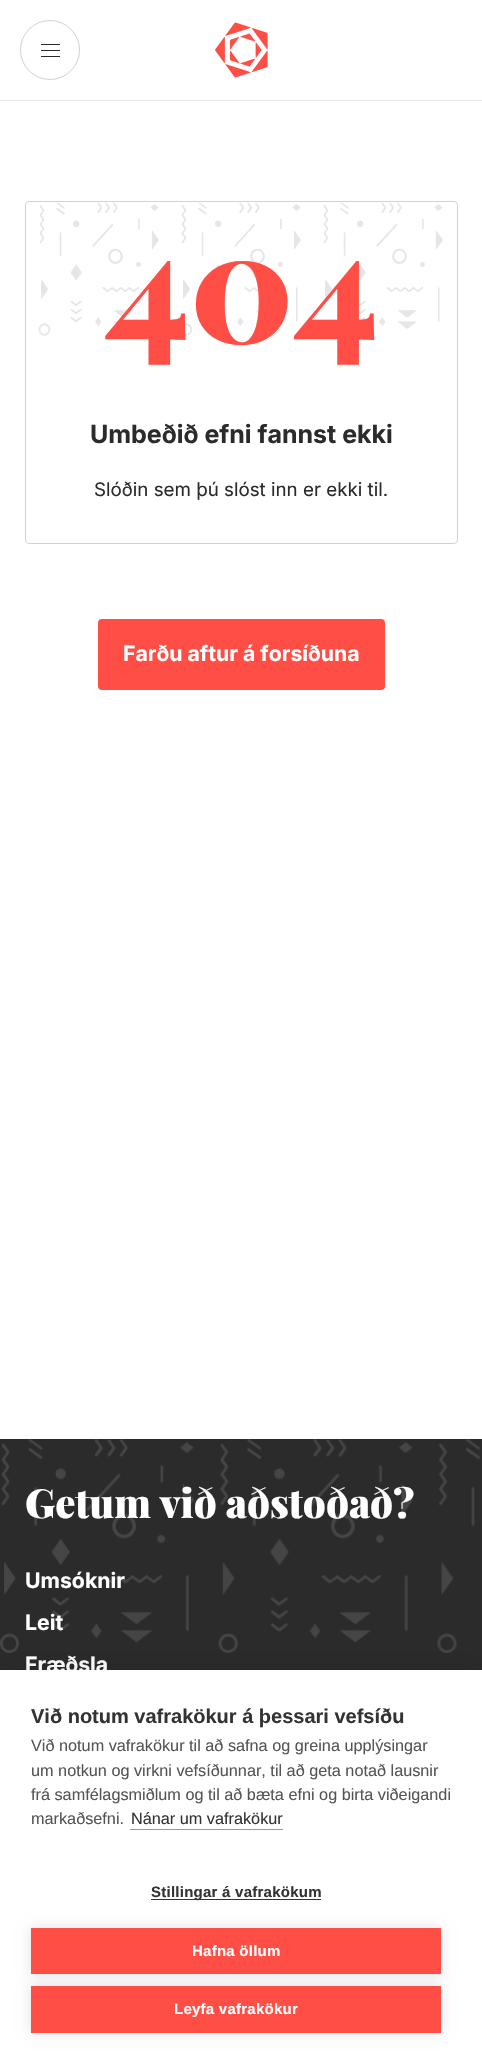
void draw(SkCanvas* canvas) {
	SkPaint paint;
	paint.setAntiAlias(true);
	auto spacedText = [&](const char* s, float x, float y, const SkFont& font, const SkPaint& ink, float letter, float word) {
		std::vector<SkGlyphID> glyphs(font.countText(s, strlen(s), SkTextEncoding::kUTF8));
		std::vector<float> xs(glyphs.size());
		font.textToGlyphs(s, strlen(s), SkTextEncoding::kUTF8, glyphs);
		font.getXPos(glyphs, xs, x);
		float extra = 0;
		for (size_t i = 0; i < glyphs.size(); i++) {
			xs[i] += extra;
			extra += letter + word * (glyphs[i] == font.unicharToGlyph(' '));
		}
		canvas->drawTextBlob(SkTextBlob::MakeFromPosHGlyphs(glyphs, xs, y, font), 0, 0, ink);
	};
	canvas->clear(0xffffffff);
	paint.setColor(0xffe8e8e8);
	canvas->drawRect(SkRect::MakeXYWH(0, 100, 482, 1), paint);
	paint.setStroke(true);
	paint.setStrokeWidth(1);
	paint.setColor(0xffd2d2d2);
	canvas->drawCircle(50, 50, 29.5, paint);
	paint.setStroke(false);
	paint.setColor(0xff2b2b2b);
	canvas->drawRect(SkRect::MakeXYWH(41, 44, 19, 1), paint);
	canvas->drawRect(SkRect::MakeXYWH(41, 50, 19, 1), paint);
	canvas->drawRect(SkRect::MakeXYWH(41, 56, 19, 1), paint);
	canvas->drawImageRect(SkImages::DeferredFromEncodedData(SkData::MakeFromFileName("img1.png")), SkRect::MakeXYWH(215, 22, 53, 56), SkSamplingOptions());
	paint.setStroke(true);
	paint.setColor(0xffd2d2d2);
	canvas->drawRoundRect(SkRect::MakeXYWH(25.5, 201.5, 432, 342), 3.5, 3.5, paint);
	canvas->drawImageRect(SkImages::DeferredFromEncodedData(SkData::MakeFromFileName("img2.png")), SkRect::MakeXYWH(38, 202, 405, 135), SkSamplingOptions());
	SkFont f1(fontMgr->matchFamilyStyle("Playfair Display", SkFontStyle(900, SkFontStyle::kNormal_Width, SkFontStyle::kUpright_Slant)), 154);
	f1.setSubpixel(true);
	paint.setStroke(false);
	paint.setColor(0xffff4e46);
	canvas->drawString("404", 105, 343, f1, paint);
	SkFont f2(fontMgr->matchFamilyStyle("Inter", SkFontStyle::Bold()), 25);
	f2.setSubpixel(true);
	paint.setColor(0xff2b2b2b);
	canvas->drawString("Umbeðið efni fannst ekki", 90, 443, f2, paint);
	SkFont f3(fontMgr->matchFamilyStyle("Inter", SkFontStyle::Normal()), 18.75);
	f3.setSubpixel(true);
	canvas->drawString("Slóðin sem þú slóst inn er ekki til.", 94, 496, f3, paint);
	paint.setColor(0xffff4e46);
	canvas->drawRoundRect(SkRect::MakeXYWH(98, 619, 287, 71), 4, 4, paint);
	SkFont f4(fontMgr->matchFamilyStyle("Inter", SkFontStyle::Bold()), 21.25);
	f4.setSubpixel(true);
	paint.setColor(0xffffffff);
	canvas->drawString("Farðu aftur á forsíðuna", 123, 661, f4, paint);
	paint.setColor(0xff2b2b2b);
	canvas->drawRect(SkRect::MakeXYWH(0, 1439, 482, 231), paint);
	canvas->drawImageRect(SkImages::DeferredFromEncodedData(SkData::MakeFromFileName("img3.png")), SkRect::MakeXYWH(0, 1439, 480, 214), SkSamplingOptions());
	SkFont f5(fontMgr->matchFamilyStyle("Playfair Display", SkFontStyle(900, SkFontStyle::kNormal_Width, SkFontStyle::kUpright_Slant)), 40);
	f5.setSubpixel(true);
	paint.setColor(0xffffffff);
	canvas->drawString("Getum við aðstoðað?", 25, 1518, f5, paint);
	canvas->drawString("Umsóknir", 25, 1588, f4, paint);
	canvas->drawString("Leit", 25, 1630, f4, paint);
	canvas->drawString("Fræðsla", 25, 1672, f4, paint);
	paint.setColor(0x1a000000);
	paint.setMaskFilter(SkMaskFilter::MakeBlur(kNormal_SkBlurStyle, 12.5));
	canvas->drawRect(SkRect::MakeXYWH(0, 1670, 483, 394), paint);
	paint.setMaskFilter(nullptr);
	paint.setColor(0xffffffff);
	canvas->drawRect(SkRect::MakeXYWH(0, 1670, 482, 393), paint);
	SkFont f6(fontMgr->matchFamilyStyle("Liberation Sans", SkFontStyle::Bold()), 20);
	f6.setSubpixel(true);
	paint.setColor(0xff333333);
	canvas->drawString("Við notum vafrakökur á þessari vefsíðu", 31, 1723, f6, paint);
	SkFont f7(fontMgr->matchFamilyStyle("Liberation Sans", SkFontStyle::Normal()), 16.25);
	f7.setSubpixel(true);
	paint.setColor(0xff555555);
	canvas->drawString("Við notum vafrakökur til að safna og greina upplýsingar", 31, 1751, f7, paint);
	canvas->drawString("um notkun og virkni vefsíðunnar, til að geta notað lausnir", 31, 1776, f7, paint);
	canvas->drawString("frá samfélagsmiðlum og til að bæta efni og birta viðeigandi", 31, 1800, f7, paint);
	canvas->drawString("markaðsefni.", 31, 1824, f7, paint);
	paint.setColor(0xff333333);
	canvas->drawString("Nánar um vafrakökur", 131, 1824, f7, paint);
	paint.setColor(0xff999999);
	canvas->drawRect(SkRect::MakeXYWH(130, 1829, 153, 1), paint);
	paint.setColor(0xff333333);
	canvas->drawRect(SkRect::MakeXYWH(151, 1899, 170, 1), paint);
	SkFont f8(fontMgr->matchFamilyStyle("Liberation Sans", SkFontStyle::Bold()), 15);
	f8.setSubpixel(true);
	spacedText("Stillingar á vafrakökum", 151, 1897, f8, paint, 0.25, 0);
	paint.setColor(0x1f000000);
	paint.setMaskFilter(SkMaskFilter::MakeBlur(kNormal_SkBlurStyle, 6));
	canvas->drawRect(SkRect::MakeXYWH(31, 1928, 410, 46), paint);
	paint.setMaskFilter(nullptr);
	paint.setColor(0xffff4e46);
	canvas->drawRect(SkRect::MakeXYWH(31, 1928, 410, 46), paint);
	paint.setColor(0xffffffff);
	spacedText("Hafna öllum", 192, 1956, f8, paint, 0.25, 0);
	paint.setColor(0x1f000000);
	paint.setMaskFilter(SkMaskFilter::MakeBlur(kNormal_SkBlurStyle, 6));
	canvas->drawRect(SkRect::MakeXYWH(31, 1986, 410, 47), paint);
	paint.setMaskFilter(nullptr);
	paint.setColor(0xffff4e46);
	canvas->drawRect(SkRect::MakeXYWH(31, 1986, 410, 47), paint);
	paint.setColor(0xffffffff);
	spacedText("Leyfa vafrakökur", 174, 2014, f8, paint, 0.25, 0);
}
